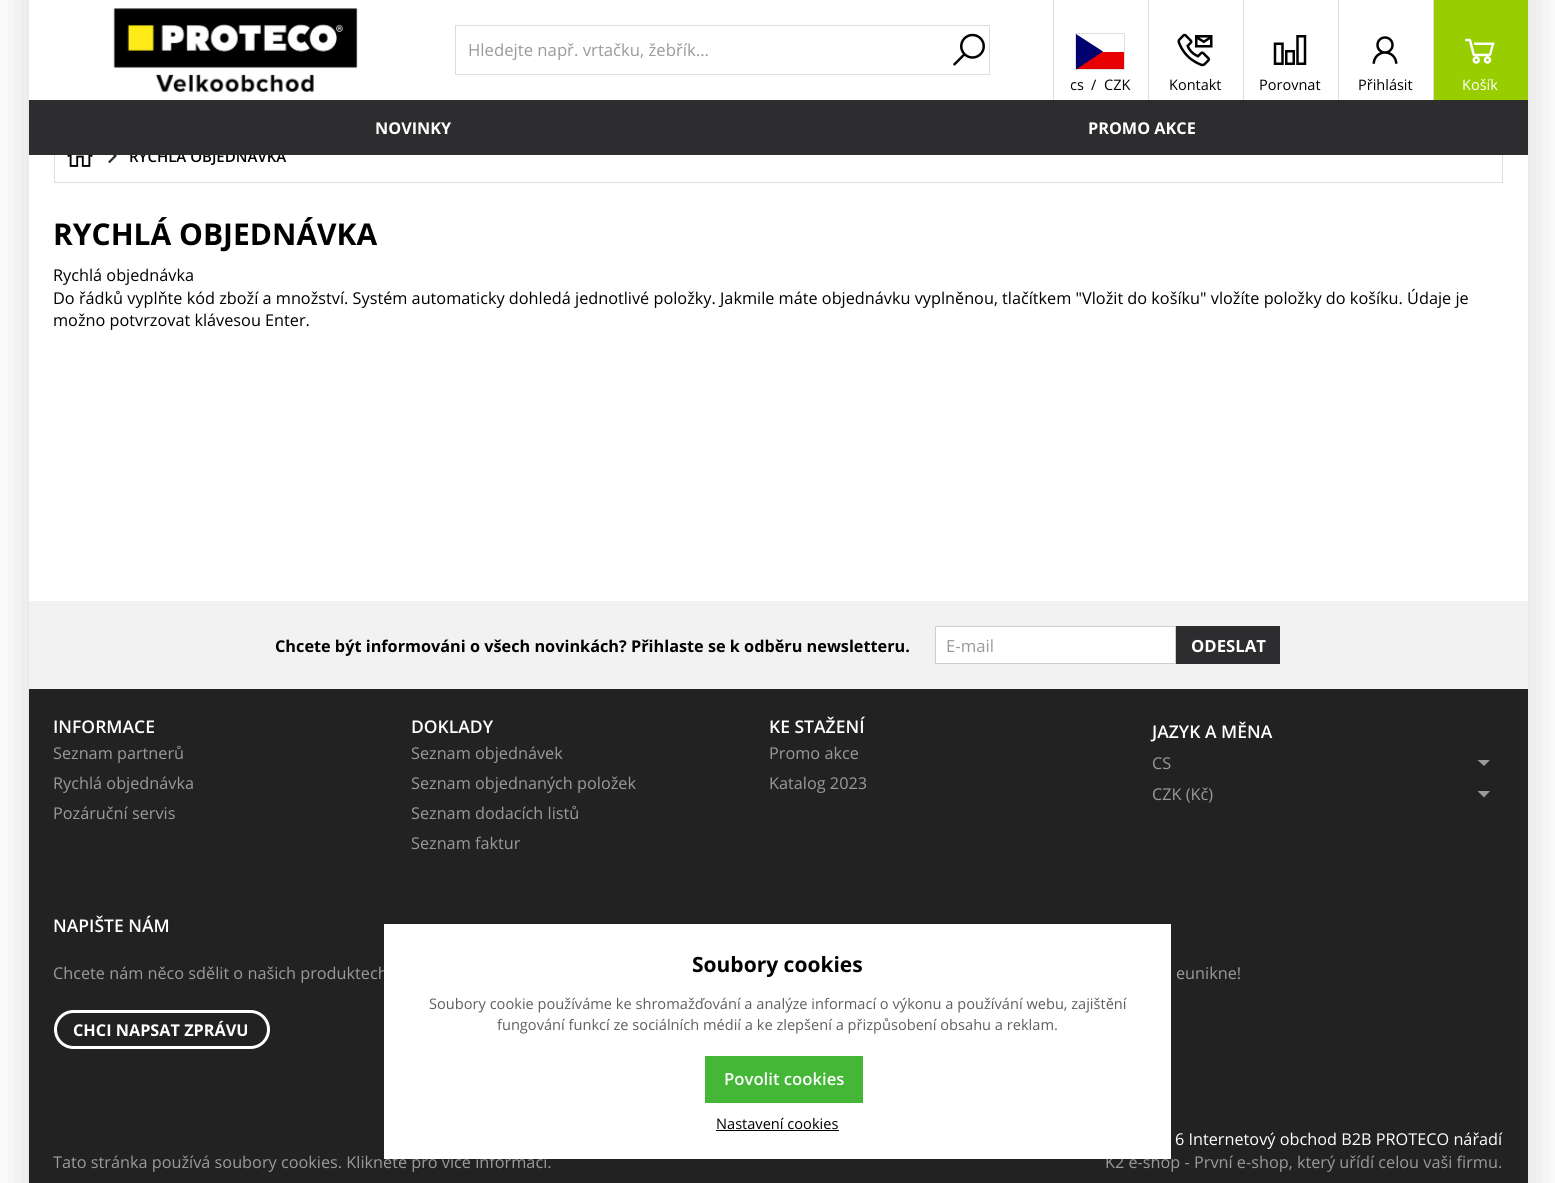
import math
import cairo

surface = cairo.ImageSurface(cairo.FORMAT_RGB24, 1555, 1183)
cr = cairo.Context(surface)
options = cairo.FontOptions()
options.set_hint_metrics(cairo.HINT_METRICS_OFF)
options.set_hint_style(cairo.HINT_STYLE_NONE)
cr.set_font_options(options)
cr.set_miter_limit(4)


def rgb(code):
    cr.set_source_rgb(*(v / 255 for v in bytes.fromhex(code[-6:])))


def rrect(x, y, w, h, r):
    cr.new_sub_path()
    for i, (u, v) in enumerate([(x + w - r, y + h - r), (x + r, y + h - r), (x + r, y + r), (x + w - r, y + r)]):
        cr.arc(u, v, r, i * math.pi / 2, (i + 1) * math.pi / 2)
    cr.close_path()


def soft_shadow(x, y, w, h, r, blur, alpha):
    cr.push_group_with_content(cairo.CONTENT_ALPHA)
    cr.set_operator(cairo.OPERATOR_SOURCE)
    for i in range(15, -16, -2):
        e = blur * i / 6
        if min(w, h) + 2 * e > 0:
            cr.set_source_rgba(0, 0, 0, alpha * math.erfc((i - 1) / 8.5) / 2)
            rrect(x - e, y - e, w + 2 * e, h + 2 * e, max(0, min(r + e + blur * .6, min(w, h) / 2 + e)))
            cr.fill()
    cr.mask(cr.pop_group())


def image(path, x, y, w, h):
    cr.save()
    cr.set_source_surface(cairo.ImageSurface.create_from_png(path), x, y)
    cr.rectangle(x, y, w, h)
    cr.fill()
    cr.restore()


rgb("#ffffff")
cr.paint()
rgb("#dddddd")
soft_shadow(24, -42, 1509, 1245, 0, 20, 1)
rgb("#ffffff")
cr.rectangle(29, 155, 1499, 446)
cr.fill()
cr.rectangle(29, 0, 1404, 100)
cr.fill()
image("img/1.png", 113, 8, 245, 85)
cr.rectangle(455.5, 25.5, 534, 49)
rgb("#dddddd")
cr.set_line_width(1)
cr.stroke()
image("img/2.png", 953, 33, 32, 33)
cr.rectangle(1053, 0, 1, 100)
cr.fill()
cr.rectangle(1075.5, 33.5, 49, 36)
rgb("#dfdfdf")
cr.stroke()
rgb("#e80000")
cr.rectangle(1076, 52, 48, 17)
cr.fill()
rgb("#00006f")
cr.new_path()
cr.move_to(1076, 69.5)
cr.line_to(1076, 34)
cr.line_to(1103, 51.5)
cr.close_path()
cr.fill()
rgb("#dddddd")
cr.rectangle(1148, 0, 1, 100)
cr.fill()
image("img/3.png", 1177, 33, 36, 34)
cr.rectangle(1243, 0, 1, 100)
cr.fill()
image("img/4.png", 1273, 35, 34, 30)
cr.rectangle(1338, 0, 1, 100)
cr.fill()
image("img/5.png", 1372, 36, 26, 28)
rgb("#98ce00")
cr.rectangle(1434, 0, 94, 100)
cr.fill()
image("img/6.png", 1465, 38, 30, 26)
cr.rectangle(54.5, 130.5, 1448, 52)
rgb("#dddddd")
cr.stroke()
image("img/7.png", 67, 155, 26, 12)
image("img/8.png", 108, 155, 9, 9)
rgb("#f2f2f2")
cr.rectangle(29, 601, 1499, 88)
cr.fill()
rgb("#ffffff")
cr.rectangle(935.5, 626.5, 240, 37)
cr.fill_preserve()
rgb("#cecece")
cr.stroke()
rgb("#2d2c2e")
cr.rectangle(1176, 626, 104, 38)
cr.fill()
rgb("#222222")
cr.rectangle(29, 689, 1499, 494)
cr.fill()
rgb("#9a9a9a")
cr.new_path()
cr.move_to(1477.5, 760)
cr.line_to(1490, 760)
cr.line_to(1484, 766)
cr.close_path()
cr.fill()
cr.new_path()
cr.move_to(1477.5, 791)
cr.line_to(1490, 791)
cr.line_to(1484, 797.5)
cr.close_path()
cr.fill()
rrect(55.5, 1011.5, 213, 36, 18)
rgb("#ffffff")
cr.set_line_width(3)
cr.stroke()
cr.select_font_face("Open Sans")
cr.set_font_size(16.7)
rgb("#9a9a9a")
cr.move_to(468, 56)
cr.show_text("Hledejte např. vrtačku, žebřík...")
cr.set_font_size(14.5)
rgb("#000000")
for x, y, s in [
    (1070, 90, "cs"),
    (1091, 90, "/"),
    (1104, 90, "CZK"),
    (1169, 90, "Kontakt"),
    (1259, 90, "Porovnat"),
    (1358, 90, "Přihlásit"),
]:
    cr.move_to(x, y)
    cr.show_text(s)
rgb("#ffffff")
cr.move_to(1462, 90)
cr.show_text("Košík")
cr.select_font_face("Open Sans SemiBold")
cr.set_font_size(15)
rgb("#000000")
cr.move_to(129, 162)
cr.show_text("RYCHLÁ OBJEDNÁVKA")
rgb("#2d2c2e")
cr.rectangle(29, 100, 1499, 55)
cr.fill()
cr.select_font_face("Open Sans", cairo.FONT_SLANT_NORMAL, cairo.FONT_WEIGHT_BOLD)
cr.set_font_size(16.25)
rgb("#ffffff")
cr.move_to(1088, 134)
cr.show_text("PROMO AKCE")
cr.move_to(375, 134)
cr.show_text("NOVINKY")
cr.set_font_size(30)
rgb("#000000")
cr.move_to(53, 245)
cr.show_text("RYCHLÁ OBJEDNÁVKA")
cr.select_font_face("Open Sans")
cr.set_font_size(16.25)
for x, y, s in [
    (53, 281, "Rychlá objednávka"),
    (53, 304, "Do řádků vyplňte kód zboží a množství. Systém automaticky dohledá jednotlivé položky. Jakmile máte objednávku vyplněnou, tlačítkem \"Vložit do košíku\" vložíte položky do košíku. Údaje je"),
    (53, 326, "možno potvrzovat klávesou Enter."),
]:
    cr.move_to(x, y)
    cr.show_text(s)
cr.select_font_face("Open Sans", cairo.FONT_SLANT_NORMAL, cairo.FONT_WEIGHT_BOLD)
cr.move_to(275, 652)
cr.show_text("Chcete být informováni o všech novinkách? Přihlaste se k odběru newsletteru.")
cr.select_font_face("Open Sans")
cr.set_font_size(16.7)
rgb("#9a9a9a")
cr.move_to(946, 652)
cr.show_text("E-mail")
cr.select_font_face("Open Sans", cairo.FONT_SLANT_NORMAL, cairo.FONT_WEIGHT_BOLD)
rgb("#ffffff")
cr.move_to(1191, 652)
cr.show_text("ODESLAT")
cr.select_font_face("Open Sans SemiBold")
cr.set_font_size(17.5)
cr.move_to(53, 733)
cr.show_text("INFORMACE")
cr.select_font_face("Open Sans")
cr.set_font_size(16.25)
rgb("#9a9a9a")
for x, y, s in [
    (53, 759, "Seznam partnerů"),
    (53, 789, "Rychlá objednávka"),
    (53, 819, "Pozáruční servis"),
]:
    cr.move_to(x, y)
    cr.show_text(s)
cr.select_font_face("Open Sans SemiBold")
cr.set_font_size(17.5)
rgb("#ffffff")
cr.move_to(411, 733)
cr.show_text("DOKLADY")
cr.select_font_face("Open Sans")
cr.set_font_size(16.25)
rgb("#9a9a9a")
for x, y, s in [
    (411, 759, "Seznam objednávek"),
    (411, 789, "Seznam objednaných položek"),
    (411, 819, "Seznam dodacích listů"),
    (411, 849, "Seznam faktur"),
]:
    cr.move_to(x, y)
    cr.show_text(s)
cr.select_font_face("Open Sans SemiBold")
cr.set_font_size(17.5)
rgb("#ffffff")
cr.move_to(769, 733)
cr.show_text("KE STAŽENÍ")
cr.select_font_face("Open Sans")
cr.set_font_size(16.25)
rgb("#9a9a9a")
cr.move_to(769, 759)
cr.show_text("Promo akce")
cr.move_to(769, 789)
cr.show_text("Katalog 2023")
cr.select_font_face("Open Sans SemiBold")
cr.set_font_size(17.5)
rgb("#ffffff")
cr.move_to(1152, 738)
cr.show_text("JAZYK A MĚNA")
cr.select_font_face("Open Sans")
cr.set_font_size(16.25)
rgb("#9a9a9a")
cr.move_to(1152, 769)
cr.show_text("CS")
cr.move_to(1152, 800)
cr.show_text("CZK (Kč)")
cr.select_font_face("Open Sans SemiBold")
cr.set_font_size(17.5)
rgb("#ffffff")
cr.move_to(53, 932)
cr.show_text("NAPIŠTE NÁM")
cr.select_font_face("Open Sans")
cr.set_font_size(16.25)
rgb("#9a9a9a")
cr.move_to(53, 979)
cr.show_text("Chcete nám něco sdělit o našich produktech")
cr.select_font_face("Open Sans", cairo.FONT_SLANT_NORMAL, cairo.FONT_WEIGHT_BOLD)
rgb("#ffffff")
cr.move_to(73, 1036)
cr.show_text("CHCI NAPSAT ZPRÁVU")
cr.select_font_face("Open Sans")
rgb("#9a9a9a")
cr.move_to(1176, 979)
cr.show_text("eunikne!")
cr.move_to(53, 1168)
cr.show_text("Tato stránka používá soubory cookies. Klikněte pro více informací.")
rgb("#ffffff")
cr.move_to(1175, 1145)
cr.show_text("6 Internetový obchod B2B PROTECO nářadí")
rgb("#9a9a9a")
cr.move_to(1105, 1168)
cr.show_text("K2 e-shop - První e-shop, který uřídí celou vaši firmu.")
rgb("#ffffff")
cr.rectangle(384, 924, 787, 235)
cr.fill()
cr.select_font_face("Open Sans", cairo.FONT_SLANT_NORMAL, cairo.FONT_WEIGHT_BOLD)
cr.set_font_size(21)
rgb("#000000")
cr.move_to(692, 972)
cr.show_text("Soubory cookies")
cr.select_font_face("Open Sans")
cr.set_font_size(14.6)
rgb("#5e5e5e")
cr.move_to(429, 1009)
cr.show_text("Soubory cookie používáme ke shromažďování a analýze informací o výkonu a používání webu, zajištění")
cr.move_to(497, 1030)
cr.show_text("fungování funkcí ze sociálních médií a ke zlepšení a přizpůsobení obsahu a reklam.")
rgb("#44b736")
cr.rectangle(705, 1056, 158, 47)
cr.fill()
cr.select_font_face("Open Sans SemiBold")
cr.set_font_size(16.7)
rgb("#ffffff")
cr.move_to(724, 1085)
cr.show_text("Povolit cookies")
cr.select_font_face("Open Sans")
cr.set_font_size(14.6)
rgb("#000000")
cr.move_to(716, 1129)
cr.show_text("Nastavení cookies")
cr.rectangle(716, 1130, 123, 1)
cr.fill()
surface.write_to_png("page.png")
